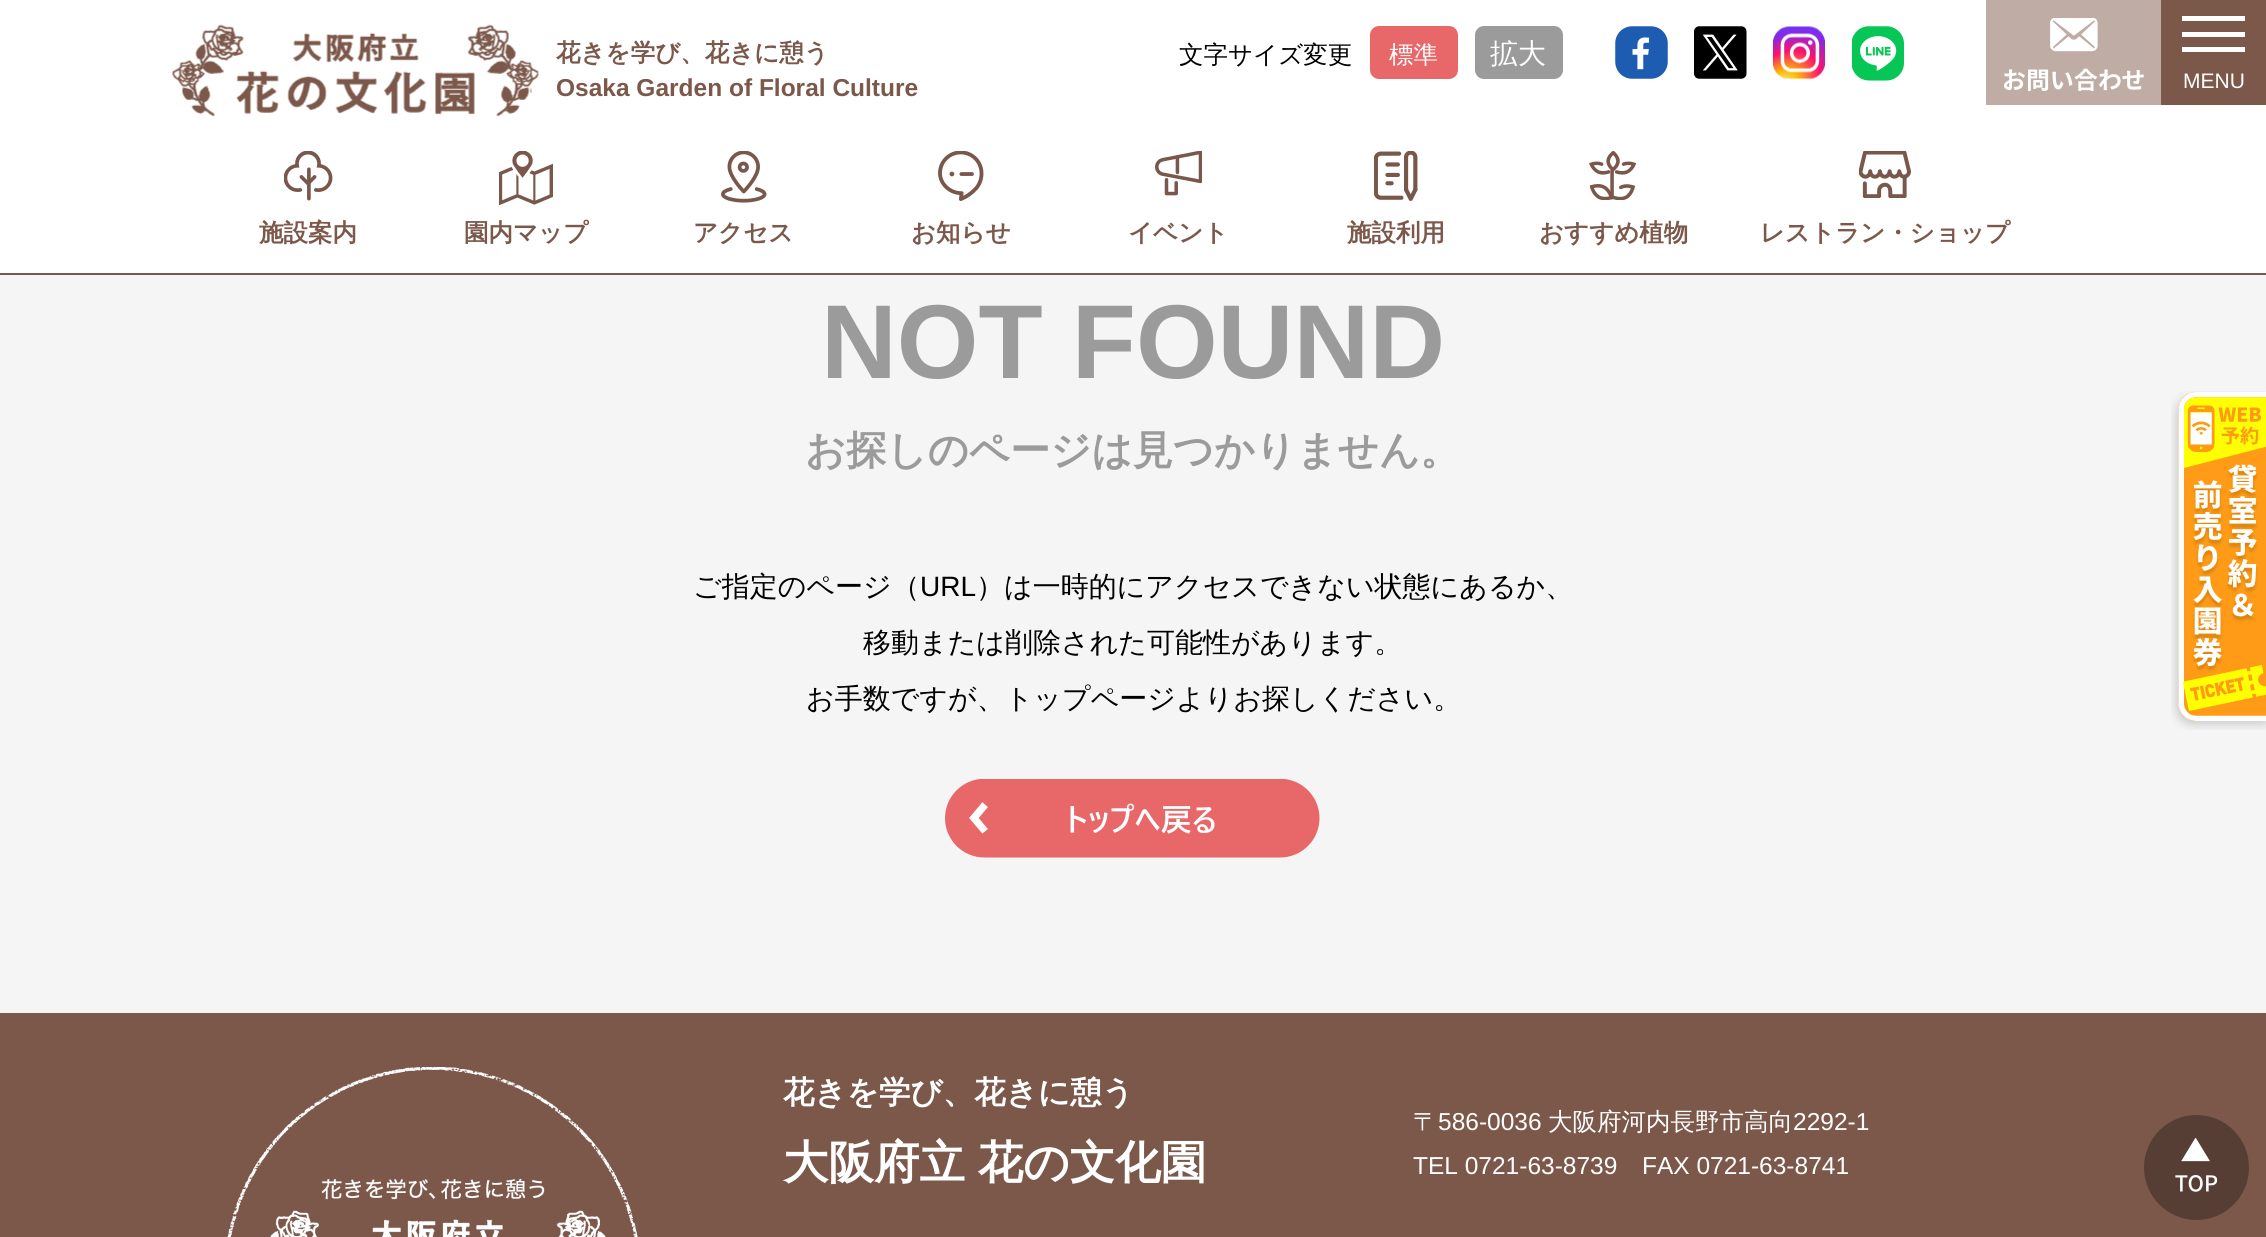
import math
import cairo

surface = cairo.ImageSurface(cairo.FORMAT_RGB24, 2266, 1237)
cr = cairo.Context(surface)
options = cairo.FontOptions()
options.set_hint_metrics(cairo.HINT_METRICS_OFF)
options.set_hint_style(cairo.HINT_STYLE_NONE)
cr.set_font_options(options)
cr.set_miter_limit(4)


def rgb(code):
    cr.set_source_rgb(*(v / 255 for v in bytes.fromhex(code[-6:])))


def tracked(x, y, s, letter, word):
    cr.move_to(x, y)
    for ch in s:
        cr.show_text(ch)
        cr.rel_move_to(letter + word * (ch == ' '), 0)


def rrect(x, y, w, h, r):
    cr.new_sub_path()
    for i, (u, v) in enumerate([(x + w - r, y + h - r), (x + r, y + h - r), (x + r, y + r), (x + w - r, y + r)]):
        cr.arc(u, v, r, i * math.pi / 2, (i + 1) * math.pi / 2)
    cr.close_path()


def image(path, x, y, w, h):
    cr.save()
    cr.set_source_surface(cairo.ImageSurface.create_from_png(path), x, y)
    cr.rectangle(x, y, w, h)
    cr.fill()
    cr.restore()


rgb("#f5f5f5")
cr.paint()
rgb("#ffffff")
cr.rectangle(0, 0, 2266, 273)
cr.fill()
rgb("#7c584b")
cr.rectangle(0, 273, 2266, 2)
cr.fill()
image("img/1.png", 172, 24, 367, 93)
rgb("#e86869")
rrect(1370, 26, 88, 53, 9)
cr.fill()
rgb("#9b9b9b")
rrect(1475, 26, 88, 53, 9)
cr.fill()
image("img/2.png", 1615, 26, 53, 53)
image("img/3.png", 1694, 26, 53, 53)
image("img/4.png", 1773, 26, 52, 54)
image("img/5.png", 1852, 26, 52, 55)
rgb("#beaca5")
cr.rectangle(1986, 0, 175, 105)
cr.fill()
image("img/6.png", 2004, 18, 140, 73)
for x, y, w, h, color in [
    (2161, 0, 105, 105, "#7c584b"),
    (2182, 16, 63, 5, "#ffffff"),
    (2182, 32, 63, 5, "#ffffff"),
    (2182, 47, 63, 5, "#ffffff"),
]:
    rgb(color)
    cr.rectangle(x, y, w, h)
    cr.fill()
image("img/7.png", 284, 151, 49, 50)
image("img/8.png", 499, 151, 54, 54)
image("img/9.png", 721, 151, 46, 52)
image("img/10.png", 938, 151, 46, 50)
image("img/11.png", 1155, 151, 47, 45)
image("img/12.png", 1374, 151, 44, 50)
image("img/13.png", 1589, 151, 47, 49)
image("img/14.png", 1859, 151, 52, 47)
image("img/15.png", 2171, 391, 95, 339)
image("img/16.png", 945, 779, 375, 79)
rgb("#7c584b")
cr.rectangle(0, 1013, 2266, 224)
cr.fill()
image("img/17.png", 227, 1067, 411, 170)
rgb("#573e35")
cr.arc(2196.5, 1167.5, 52.5, 0, 2 * math.pi)
cr.fill()
image("img/18.png", 2175, 1138, 42, 54)
cr.select_font_face("WenQuanYi Zen Hei", cairo.FONT_SLANT_NORMAL, cairo.FONT_WEIGHT_BOLD)
cr.set_font_size(24.5)
rgb("#7c584b")
cr.move_to(556, 61)
cr.show_text("花きを学び、花きに憩う")
cr.select_font_face("Liberation Sans", cairo.FONT_SLANT_NORMAL, cairo.FONT_WEIGHT_BOLD)
cr.move_to(556, 96)
cr.show_text("Osaka Garden of Floral Culture")
cr.select_font_face("WenQuanYi Zen Hei Medium")
rgb("#000000")
cr.move_to(1179, 63)
cr.show_text("文字サイズ変更")
rgb("#ffffff")
cr.move_to(1389, 63)
cr.show_text("標準")
cr.set_font_size(28)
cr.move_to(1490, 63)
cr.show_text("拡大")
cr.select_font_face("Liberation Sans")
cr.set_font_size(21)
cr.move_to(2183, 88)
cr.show_text("MENU")
cr.select_font_face("WenQuanYi Zen Hei", cairo.FONT_SLANT_NORMAL, cairo.FONT_WEIGHT_BOLD)
cr.set_font_size(24.5)
rgb("#7c584b")
for x, y, s in [
    (259, 241, "施設案内"),
    (464, 241, "園内マップ"),
    (693, 241, "アクセス"),
    (911, 241, "お知らせ"),
    (1128, 241, "イベント"),
    (1347, 241, "施設利用"),
    (1539, 241, "おすすめ植物"),
    (1760, 241, "レストラン・ショップ"),
]:
    cr.move_to(x, y)
    cr.show_text(s)
cr.select_font_face("Liberation Sans", cairo.FONT_SLANT_NORMAL, cairo.FONT_WEIGHT_BOLD)
cr.set_font_size(105)
rgb("#9b9b9b")
cr.move_to(821, 378)
cr.show_text("NOT FOUND")
cr.select_font_face("WenQuanYi Zen Hei", cairo.FONT_SLANT_NORMAL, cairo.FONT_WEIGHT_BOLD)
cr.set_font_size(40.25)
cr.move_to(805, 464)
cr.show_text("お探しのページは見つかりません。")
cr.select_font_face("WenQuanYi Zen Hei Medium")
cr.set_font_size(28)
rgb("#000000")
cr.move_to(693, 596)
cr.show_text("ご指定のページ（")
cr.select_font_face("Liberation Sans")
cr.move_to(920, 596)
cr.show_text("URL")
cr.select_font_face("WenQuanYi Zen Hei Medium")
for x, y, s in [
    (976, 596, "）は一時的にアクセスできない状態にあるか、"),
    (863, 652, "移動または削除された可能性があります。"),
    (806, 708, "お手数ですが、トップページよりお探しください。"),
]:
    cr.move_to(x, y)
    cr.show_text(s)
cr.select_font_face("WenQuanYi Zen Hei", cairo.FONT_SLANT_NORMAL, cairo.FONT_WEIGHT_BOLD)
cr.set_font_size(31.5)
rgb("#ffffff")
cr.move_to(783, 1103)
cr.show_text("花きを学び、花きに憩う")
cr.set_font_size(45.5)
tracked(783, 1178, "大阪府立 花の文化園", 0, -1)
cr.select_font_face("WenQuanYi Zen Hei Medium")
cr.set_font_size(24.5)
cr.move_to(1413, 1130)
cr.show_text("〒")
cr.select_font_face("Liberation Sans")
cr.move_to(1438, 1130)
cr.show_text("586-0036")
cr.select_font_face("WenQuanYi Zen Hei Medium")
cr.move_to(1548, 1130)
cr.show_text("大阪府河内長野市高向")
cr.select_font_face("Liberation Sans")
for x, y, s in [
    (1793, 1130, "2292-1"),
    (1413, 1174, "TEL 0721-63-8739"),
    (1642, 1174, "FAX 0721-63-8741"),
]:
    cr.move_to(x, y)
    cr.show_text(s)
surface.write_to_png("page.png")
